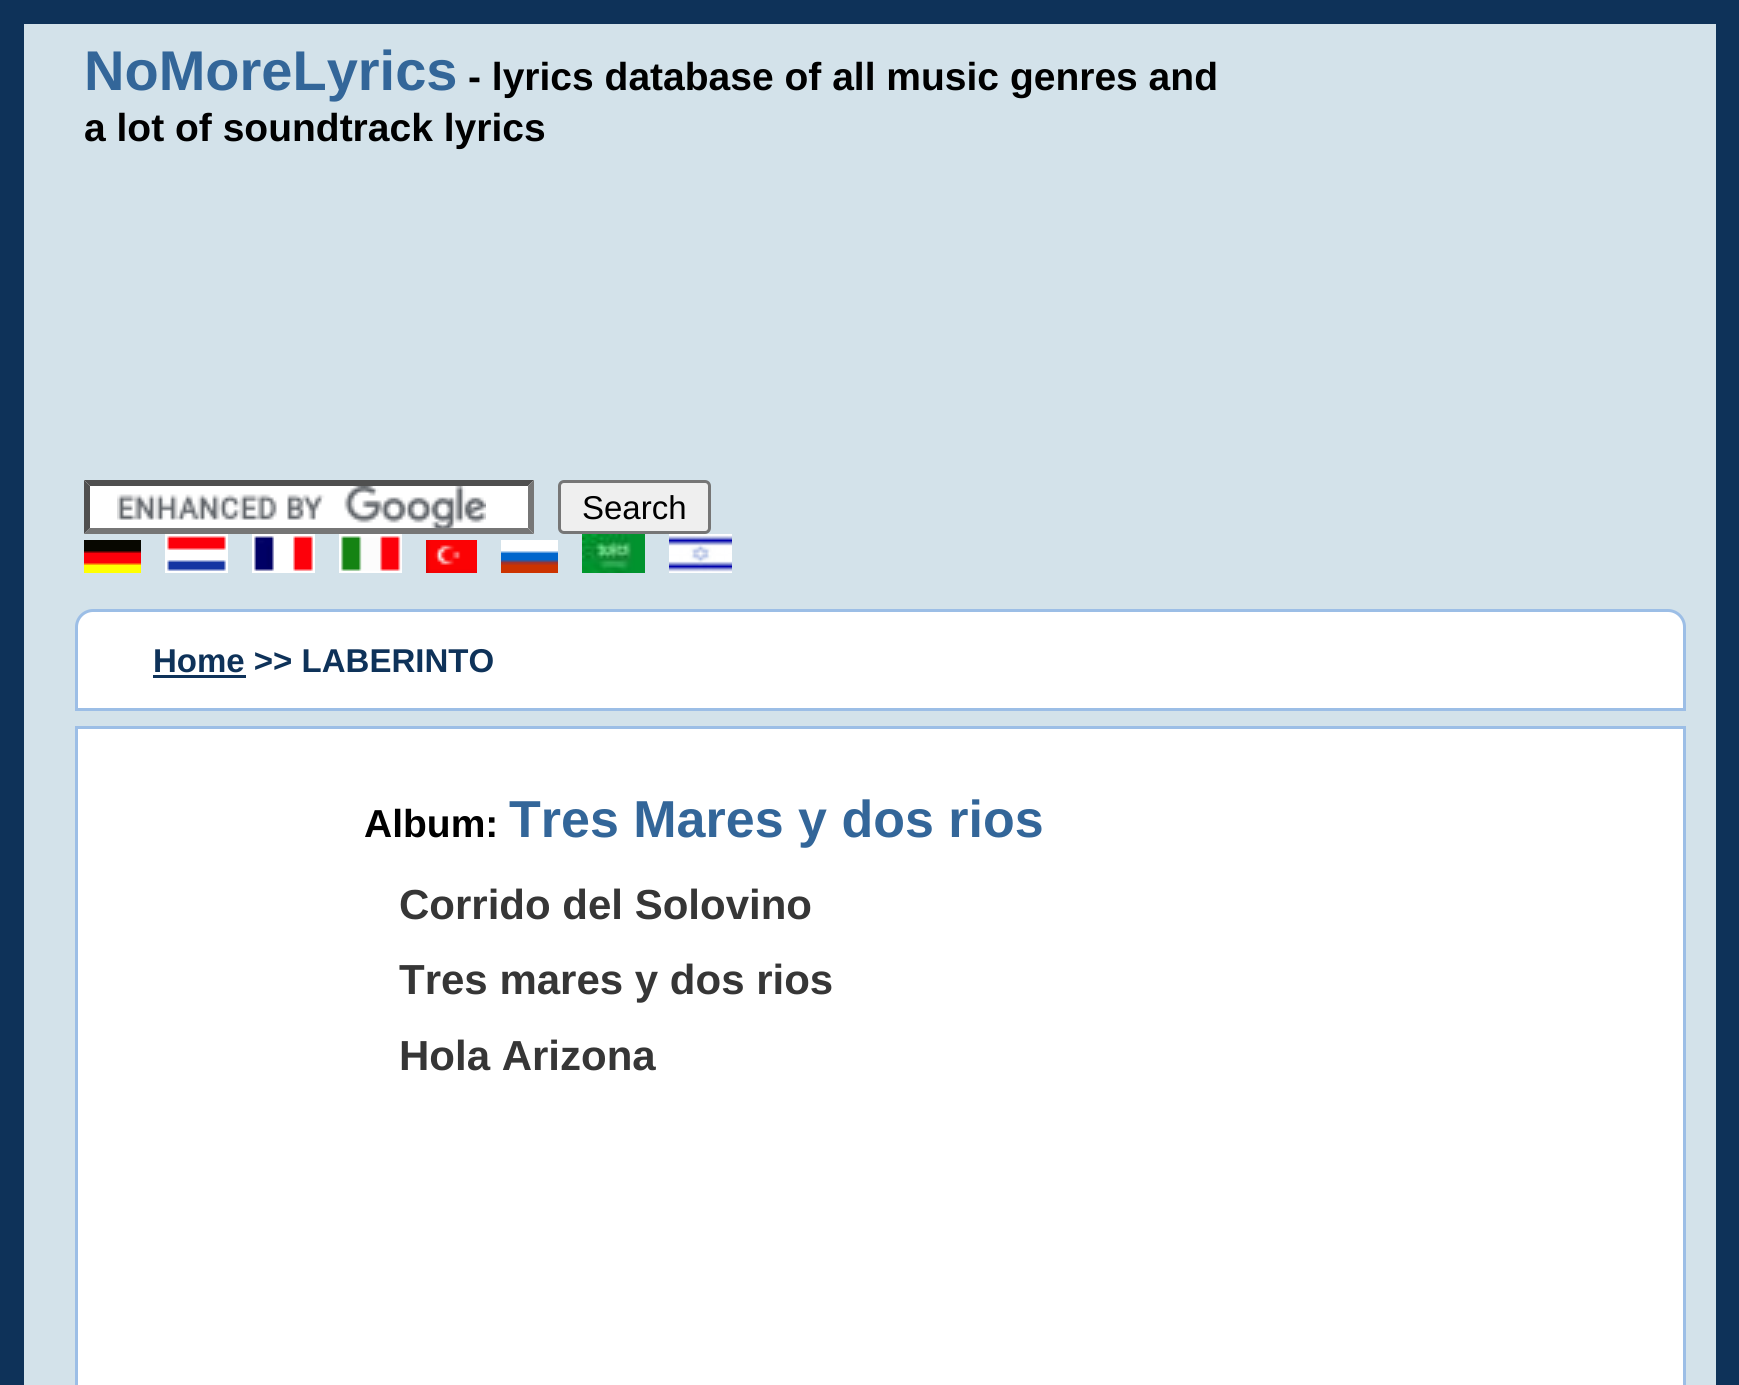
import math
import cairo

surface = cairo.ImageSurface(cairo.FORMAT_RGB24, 1739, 1385)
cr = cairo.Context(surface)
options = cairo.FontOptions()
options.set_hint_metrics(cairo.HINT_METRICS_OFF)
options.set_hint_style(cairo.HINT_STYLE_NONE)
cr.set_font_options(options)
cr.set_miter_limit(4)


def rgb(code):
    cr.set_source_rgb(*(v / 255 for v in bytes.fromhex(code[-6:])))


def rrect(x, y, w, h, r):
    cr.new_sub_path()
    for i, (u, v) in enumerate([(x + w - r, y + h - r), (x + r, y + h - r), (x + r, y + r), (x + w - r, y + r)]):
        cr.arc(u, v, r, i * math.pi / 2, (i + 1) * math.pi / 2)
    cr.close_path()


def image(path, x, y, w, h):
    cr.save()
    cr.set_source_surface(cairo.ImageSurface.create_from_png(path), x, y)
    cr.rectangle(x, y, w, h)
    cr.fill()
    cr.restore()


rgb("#0e3259")
cr.paint()
rgb("#d3e2ea")
cr.rectangle(24, 24, 1692, 1361)
cr.fill()
rgb("#ffffff")
cr.rectangle(84, 480, 450, 54)
cr.fill()
image("img/1.png", 117, 486, 369, 42)
rgb("#4f4f4f")
cr.new_path()
cr.move_to(84, 480)
cr.line_to(534, 480)
cr.line_to(528, 486)
cr.line_to(90, 486)
cr.close_path()
cr.fill()
rgb("#767676")
cr.new_path()
cr.move_to(534, 480)
cr.line_to(534, 534)
cr.line_to(528, 528)
cr.line_to(528, 486)
cr.close_path()
cr.fill()
cr.new_path()
cr.move_to(534, 534)
cr.line_to(84, 534)
cr.line_to(90, 528)
cr.line_to(528, 528)
cr.close_path()
cr.fill()
rgb("#4f4f4f")
cr.new_path()
cr.move_to(84, 534)
cr.line_to(84, 480)
cr.line_to(90, 486)
cr.line_to(90, 528)
cr.close_path()
cr.fill()
rgb("#efefef")
rrect(559.5, 481.5, 150, 51, 4.5)
cr.fill_preserve()
rgb("#767676")
cr.set_line_width(3)
cr.stroke()
image("img/2.png", 84, 540, 57, 33)
image("img/3.png", 165, 534, 63, 39)
image("img/4.png", 252, 534, 63, 39)
image("img/5.png", 339, 534, 63, 39)
image("img/6.png", 426, 540, 51, 33)
image("img/7.png", 501, 540, 57, 33)
image("img/8.png", 582, 534, 63, 39)
image("img/9.png", 669, 534, 63, 39)
rgb("#ffffff")
cr.new_path()
cr.move_to(93, 610.5)
cr.line_to(1668, 610.5)
cr.curve_to(1677, 610.5, 1684.5, 618, 1684.5, 627)
cr.line_to(1684.5, 709.5)
cr.line_to(76.5, 709.5)
cr.line_to(76.5, 627)
cr.curve_to(76.5, 618, 84, 610.5, 93, 610.5)
cr.close_path()
cr.fill_preserve()
rgb("#9cbee6")
cr.stroke()
rgb("#0e3259")
cr.rectangle(153, 675, 93, 3)
cr.fill()
rgb("#ffffff")
cr.rectangle(76.5, 727.5, 1608, 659)
cr.fill_preserve()
rgb("#9cbee6")
cr.stroke()
cr.select_font_face("Liberation Sans", cairo.FONT_SLANT_NORMAL, cairo.FONT_WEIGHT_BOLD)
cr.set_font_size(56)
rgb("#336699")
cr.move_to(84, 90)
cr.show_text("NoMoreLyrics")
cr.set_font_size(39)
rgb("#000000")
cr.move_to(468, 90)
cr.show_text("- lyrics database of all music genres and")
cr.move_to(84, 141)
cr.show_text("a lot of soundtrack lyrics")
cr.select_font_face("Liberation Sans")
cr.set_font_size(33)
cr.move_to(582, 519)
cr.show_text("Search")
cr.select_font_face("Liberation Sans", cairo.FONT_SLANT_NORMAL, cairo.FONT_WEIGHT_BOLD)
rgb("#0e3259")
cr.move_to(153, 672)
cr.show_text("Home >> LABERINTO")
cr.set_font_size(39)
rgb("#000000")
cr.move_to(364, 837)
cr.show_text("Album:")
cr.set_font_size(52)
rgb("#336699")
cr.move_to(509, 837)
cr.show_text("Tres Mares y dos rios")
cr.set_font_size(42)
rgb("#363636")
for x, y, s in [
    (399, 919, "Corrido del Solovino"),
    (399, 994, "Tres mares y dos rios"),
    (399, 1070, "Hola Arizona"),
]:
    cr.move_to(x, y)
    cr.show_text(s)
surface.write_to_png("page.png")
